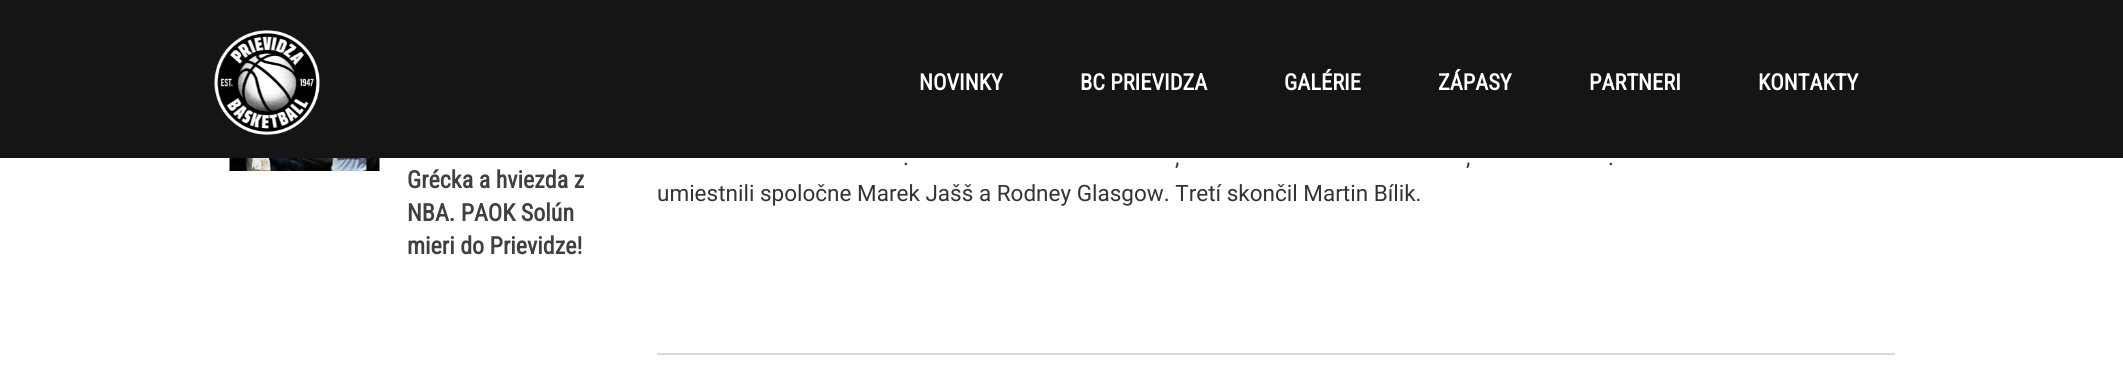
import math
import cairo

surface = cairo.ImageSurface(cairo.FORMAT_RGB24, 2123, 373)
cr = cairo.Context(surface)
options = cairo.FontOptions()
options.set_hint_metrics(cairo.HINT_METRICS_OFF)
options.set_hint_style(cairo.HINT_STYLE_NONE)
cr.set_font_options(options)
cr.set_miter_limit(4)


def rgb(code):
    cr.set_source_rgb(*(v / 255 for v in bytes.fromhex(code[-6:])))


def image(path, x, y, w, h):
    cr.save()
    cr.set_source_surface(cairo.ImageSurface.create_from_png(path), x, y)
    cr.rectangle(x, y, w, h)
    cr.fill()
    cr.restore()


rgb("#ffffff")
cr.paint()
rgb("#151515")
cr.rectangle(0, 0, 2123, 158)
cr.fill()
image("img/1.png", 214, 30, 106, 105)
image("img/2.png", 229, 158, 151, 13)
rgb("#d9d9d9")
cr.rectangle(657, 353, 1238, 2)
cr.fill()
cr.select_font_face("Roboto Condensed", cairo.FONT_SLANT_NORMAL, cairo.FONT_WEIGHT_BOLD)
cr.set_font_size(22.5)
rgb("#ffffff")
for x, y, s in [
    (919, 90, "NOVINKY"),
    (1080, 90, "BC PRIEVIDZA"),
    (1284, 90, "GALÉRIE"),
    (1438, 90, "ZÁPASY"),
    (1589, 90, "PARTNERI"),
    (1758, 90, "KONTAKTY"),
]:
    cr.move_to(x, y)
    cr.show_text(s)
cr.set_font_size(24)
rgb("#404040")
for x, y, s in [
    (407, 188, "Grécka a hviezda z"),
    (407, 221, "NBA. PAOK Solún"),
    (407, 254, "mieri do Prievidze!"),
]:
    cr.move_to(x, y)
    cr.show_text(s)
cr.select_font_face("Roboto")
cr.set_font_size(22.5)
rgb("#333333")
for x, y, s in [
    (903, 165, "."),
    (1175, 165, ","),
    (1466, 165, ","),
    (1608, 165, "."),
    (657, 201, "umiestnili spoločne Marek Jašš a Rodney Glasgow. Tretí skončil Martin Bílik."),
]:
    cr.move_to(x, y)
    cr.show_text(s)
surface.write_to_png("page.png")
